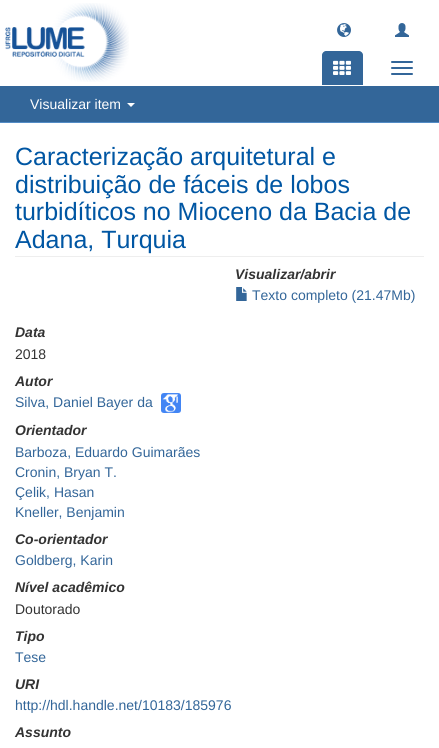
import math
import cairo

surface = cairo.ImageSurface(cairo.FORMAT_RGB24, 439, 748)
cr = cairo.Context(surface)
options = cairo.FontOptions()
options.set_hint_metrics(cairo.HINT_METRICS_OFF)
options.set_hint_style(cairo.HINT_STYLE_NONE)
cr.set_font_options(options)
cr.set_miter_limit(4)


def rgb(code):
    cr.set_source_rgb(*(v / 255 for v in bytes.fromhex(code[-6:])))


def rrect(x, y, w, h, r):
    cr.new_sub_path()
    for i, (u, v) in enumerate([(x + w - r, y + h - r), (x + r, y + h - r), (x + r, y + r), (x + w - r, y + r)]):
        cr.arc(u, v, r, i * math.pi / 2, (i + 1) * math.pi / 2)
    cr.close_path()


def image(path, x, y, w, h):
    cr.save()
    cr.set_source_surface(cairo.ImageSurface.create_from_png(path), x, y)
    cr.rectangle(x, y, w, h)
    cr.fill()
    cr.restore()


rgb("#ffffff")
cr.paint()
image("img/1.png", 5, 3, 124, 79)
image("img/2.png", 337, 23, 14, 14)
image("img/3.png", 395, 23, 14, 14)
rgb("#336699")
cr.new_path()
cr.move_to(326, 51)
cr.line_to(359, 51)
cr.curve_to(361, 51, 363, 53, 363, 55)
cr.line_to(363, 85)
cr.line_to(322, 85)
cr.line_to(322, 55)
cr.curve_to(322, 53, 324, 51, 326, 51)
cr.close_path()
cr.fill()
image("img/4.png", 333, 60, 18, 15)
rrect(391, 61, 22, 2, 1)
cr.fill()
rrect(391, 67, 22, 2, 1)
cr.fill()
rrect(391, 73, 22, 2, 1)
cr.fill()
cr.rectangle(0, 86, 439, 36)
cr.fill()
rgb("#538cc6")
cr.rectangle(0, 122, 439, 1)
cr.fill()
rgb("#ffffff")
cr.new_path()
cr.move_to(127, 103)
cr.line_to(135, 103)
cr.line_to(131, 107)
cr.close_path()
cr.fill()
rgb("#eeeeee")
cr.rectangle(15, 256, 409, 1)
cr.fill()
image("img/5.png", 236, 287, 11, 14)
image("img/6.png", 161, 393, 20, 20)
cr.select_font_face("Liberation Sans")
cr.set_font_size(14)
rgb("#ffffff")
cr.move_to(30, 109)
cr.show_text("Visualizar item")
cr.set_font_size(25)
rgb("#0056a3")
for x, y, s in [
    (15, 165, "Caracterização arquitetural e"),
    (15, 193, "distribuição de fáceis de lobos"),
    (15, 220, "turbidíticos no Mioceno da Bacia de"),
    (15, 248, "Adana, Turquia"),
]:
    cr.move_to(x, y)
    cr.show_text(s)
cr.select_font_face("Liberation Sans", cairo.FONT_SLANT_ITALIC, cairo.FONT_WEIGHT_BOLD)
cr.set_font_size(14)
rgb("#333333")
cr.move_to(235, 279)
cr.show_text("Visualizar/abrir")
cr.select_font_face("Liberation Sans")
rgb("#336699")
cr.move_to(252, 300)
cr.show_text("Texto completo (21.47Mb)")
cr.select_font_face("Liberation Sans", cairo.FONT_SLANT_ITALIC, cairo.FONT_WEIGHT_BOLD)
rgb("#333333")
cr.move_to(15, 337)
cr.show_text("Data")
cr.select_font_face("Liberation Sans")
cr.move_to(15, 359)
cr.show_text("2018")
cr.select_font_face("Liberation Sans", cairo.FONT_SLANT_ITALIC, cairo.FONT_WEIGHT_BOLD)
cr.move_to(15, 386)
cr.show_text("Autor")
cr.select_font_face("Liberation Sans")
rgb("#336699")
cr.move_to(15, 407)
cr.show_text("Silva, Daniel Bayer da")
cr.select_font_face("Liberation Sans", cairo.FONT_SLANT_ITALIC, cairo.FONT_WEIGHT_BOLD)
rgb("#333333")
cr.move_to(15, 435)
cr.show_text("Orientador")
cr.select_font_face("Liberation Sans")
rgb("#336699")
for x, y, s in [
    (15, 457, "Barboza, Eduardo Guimarães"),
    (15, 477, "Cronin, Bryan T."),
    (15, 497, "Çelik, Hasan"),
    (15, 517, "Kneller, Benjamin"),
]:
    cr.move_to(x, y)
    cr.show_text(s)
cr.select_font_face("Liberation Sans", cairo.FONT_SLANT_ITALIC, cairo.FONT_WEIGHT_BOLD)
rgb("#333333")
cr.move_to(15, 544)
cr.show_text("Co-orientador")
cr.select_font_face("Liberation Sans")
rgb("#336699")
cr.move_to(15, 565)
cr.show_text("Goldberg, Karin")
cr.select_font_face("Liberation Sans", cairo.FONT_SLANT_ITALIC, cairo.FONT_WEIGHT_BOLD)
rgb("#333333")
cr.move_to(15, 592)
cr.show_text("Nível acadêmico")
cr.select_font_face("Liberation Sans")
cr.move_to(15, 614)
cr.show_text("Doutorado")
cr.select_font_face("Liberation Sans", cairo.FONT_SLANT_ITALIC, cairo.FONT_WEIGHT_BOLD)
cr.move_to(15, 641)
cr.show_text("Tipo")
cr.select_font_face("Liberation Sans")
rgb("#336699")
cr.move_to(15, 662)
cr.show_text("Tese")
cr.select_font_face("Liberation Sans", cairo.FONT_SLANT_ITALIC, cairo.FONT_WEIGHT_BOLD)
rgb("#333333")
cr.move_to(15, 689)
cr.show_text("URI")
cr.select_font_face("Liberation Sans")
rgb("#336699")
cr.move_to(15, 710)
cr.show_text("http://hdl.handle.net/10183/185976")
cr.select_font_face("Liberation Sans", cairo.FONT_SLANT_ITALIC, cairo.FONT_WEIGHT_BOLD)
rgb("#333333")
cr.move_to(15, 737)
cr.show_text("Assunto")
surface.write_to_png("page.png")
